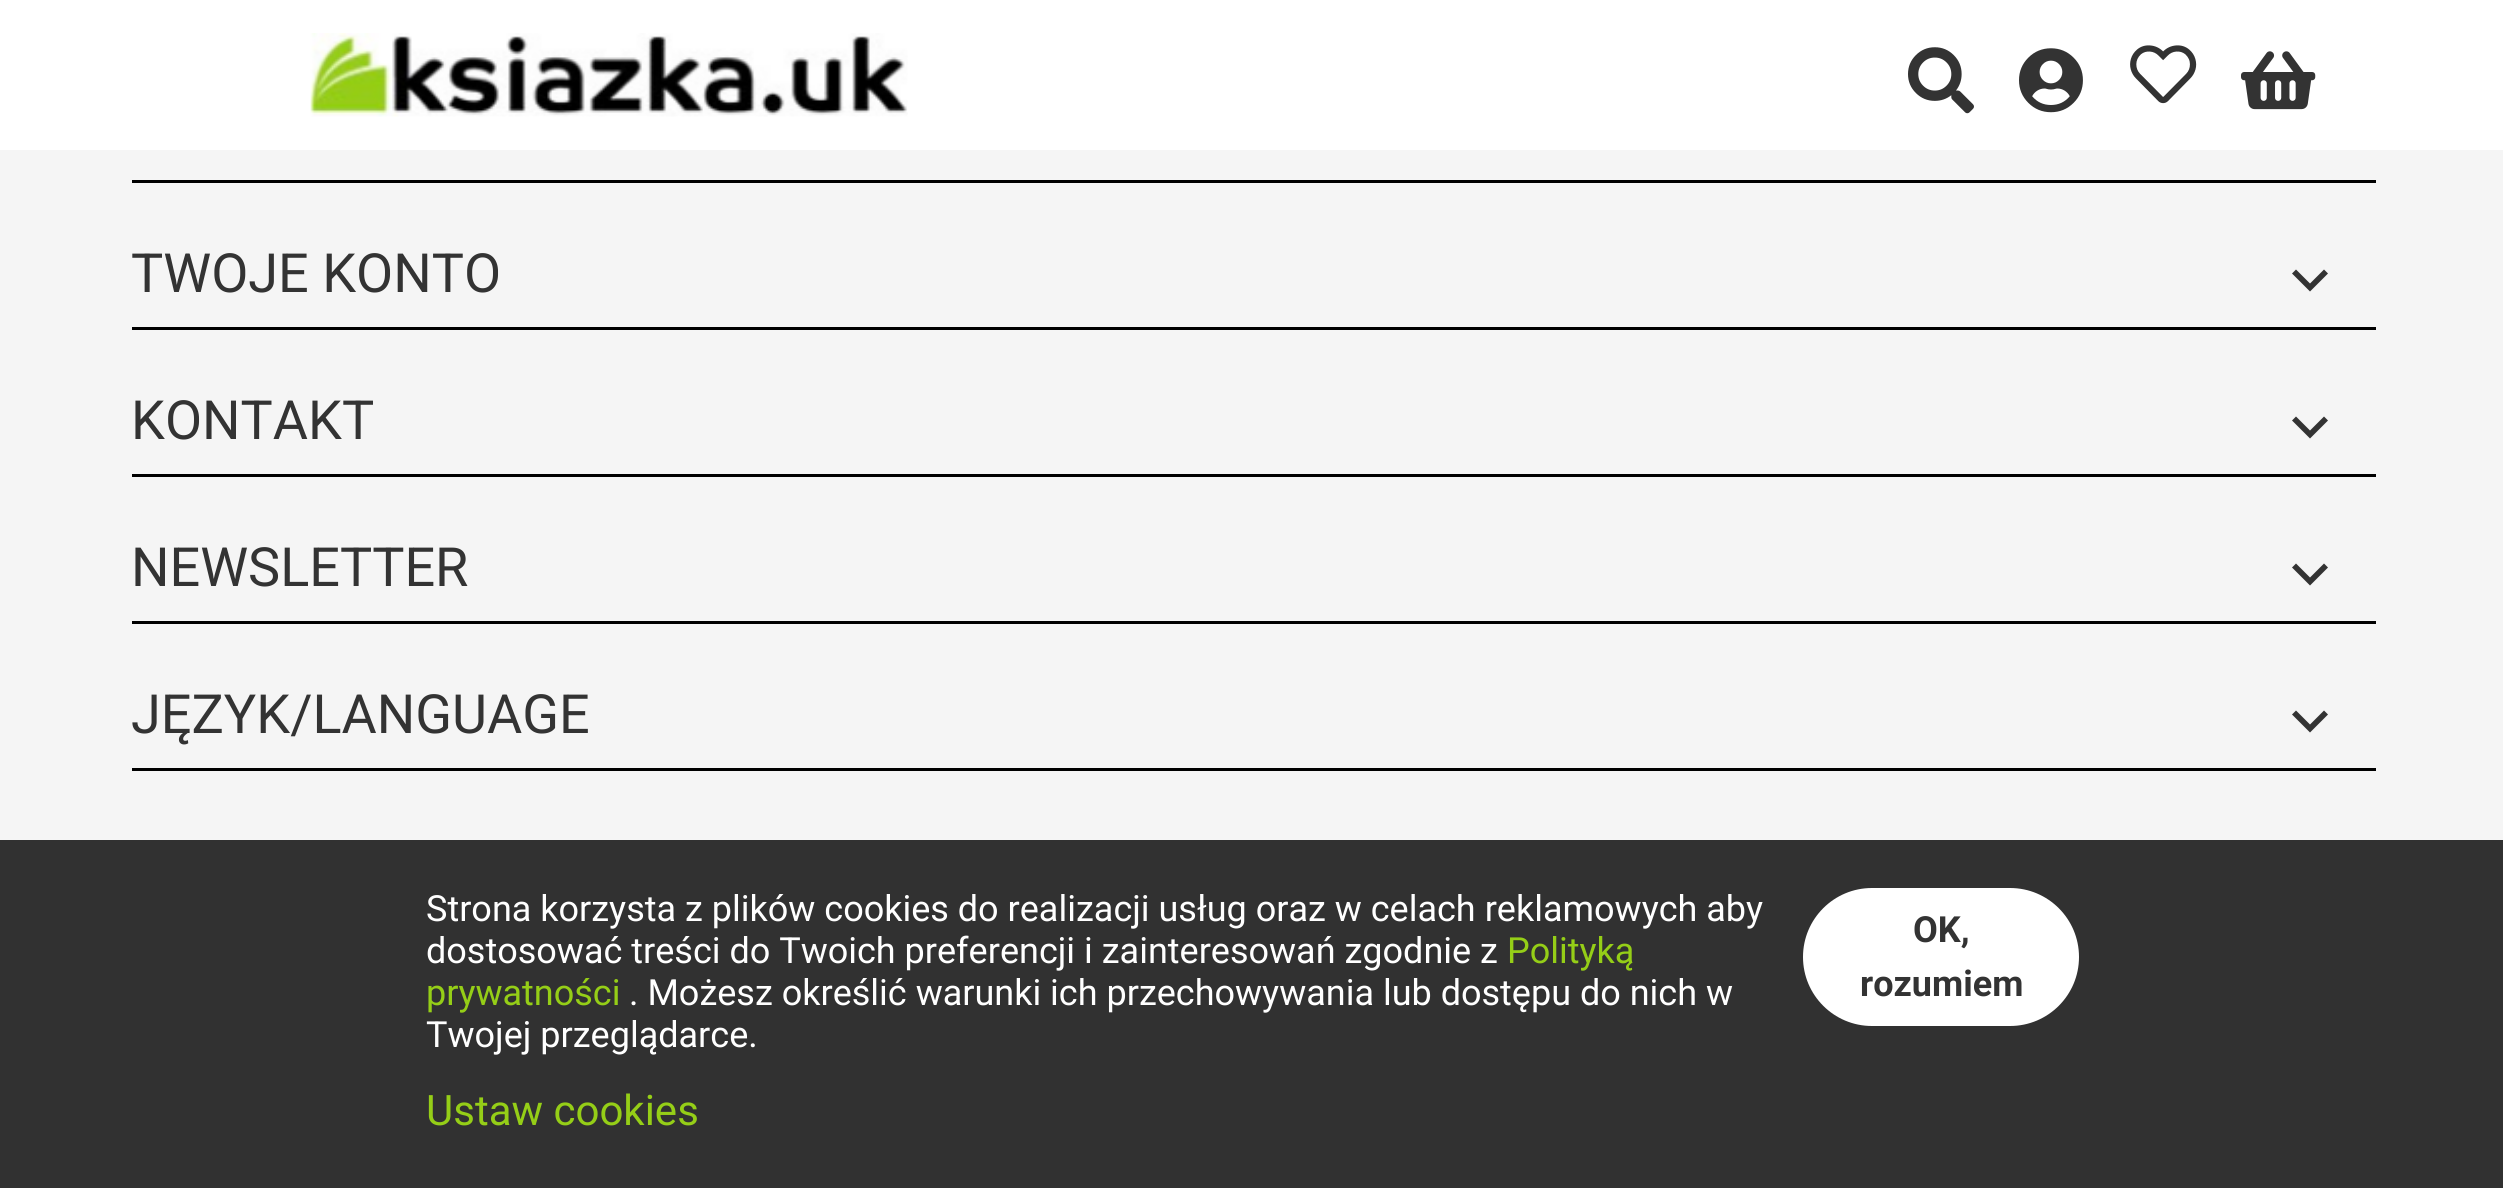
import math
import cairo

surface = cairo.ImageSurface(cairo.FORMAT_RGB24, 2503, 1188)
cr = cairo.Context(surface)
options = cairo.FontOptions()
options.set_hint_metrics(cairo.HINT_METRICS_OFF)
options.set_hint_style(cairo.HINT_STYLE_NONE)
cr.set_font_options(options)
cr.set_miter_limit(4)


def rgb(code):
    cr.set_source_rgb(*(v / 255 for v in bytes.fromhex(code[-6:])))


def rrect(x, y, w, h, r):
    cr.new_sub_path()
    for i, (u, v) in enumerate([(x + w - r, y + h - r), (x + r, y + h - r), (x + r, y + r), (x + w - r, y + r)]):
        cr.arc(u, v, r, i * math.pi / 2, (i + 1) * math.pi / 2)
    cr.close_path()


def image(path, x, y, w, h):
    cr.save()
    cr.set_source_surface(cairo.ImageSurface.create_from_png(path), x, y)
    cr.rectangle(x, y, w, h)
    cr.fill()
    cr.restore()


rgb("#f5f5f5")
cr.paint()
rgb("#ffffff")
cr.rectangle(0, 0, 2503, 150)
cr.fill()
image("img/1.png", 310, 33, 598, 84)
image("img/2.png", 1908, 47, 66, 67)
image("img/3.png", 2019, 48, 64, 65)
image("img/4.png", 2130, 45, 67, 59)
image("img/5.png", 2241, 51, 75, 59)
rgb("#000000")
cr.rectangle(132, 180, 2244, 3)
cr.fill()
cr.rectangle(132, 327, 2244, 3)
cr.fill()
rgb("#333333")
cr.new_path()
cr.move_to(2296, 269.5)
cr.line_to(2310, 283.5)
cr.line_to(2324, 269.5)
cr.line_to(2328, 273.5)
cr.line_to(2310, 291.5)
cr.line_to(2292, 273.5)
cr.close_path()
cr.fill()
rgb("#000000")
cr.rectangle(132, 474, 2244, 3)
cr.fill()
rgb("#333333")
cr.new_path()
cr.move_to(2296, 416.5)
cr.line_to(2310, 430.5)
cr.line_to(2324, 416.5)
cr.line_to(2328, 420.5)
cr.line_to(2310, 438.5)
cr.line_to(2292, 420.5)
cr.close_path()
cr.fill()
rgb("#000000")
cr.rectangle(132, 621, 2244, 3)
cr.fill()
rgb("#333333")
cr.new_path()
cr.move_to(2296, 563.5)
cr.line_to(2310, 577.5)
cr.line_to(2324, 563.5)
cr.line_to(2328, 567.5)
cr.line_to(2310, 585.5)
cr.line_to(2292, 567.5)
cr.close_path()
cr.fill()
rgb("#313131")
cr.rectangle(0, 840, 2503, 348)
cr.fill()
rgb("#ffffff")
rrect(1803, 888, 276, 138, 69)
cr.fill()
rgb("#000000")
cr.rectangle(132, 768, 2244, 3)
cr.fill()
rgb("#333333")
cr.new_path()
cr.move_to(2296, 710.5)
cr.line_to(2310, 724.5)
cr.line_to(2324, 710.5)
cr.line_to(2328, 714.5)
cr.line_to(2310, 732.5)
cr.line_to(2292, 714.5)
cr.close_path()
cr.fill()
cr.select_font_face("Roboto")
cr.set_font_size(54)
for x, y, s in [
    (131, 292, "TWOJE KONTO"),
    (131, 439, "KONTAKT"),
    (131, 586, "NEWSLETTER"),
]:
    cr.move_to(x, y)
    cr.show_text(s)
cr.set_font_size(36)
rgb("#ffffff")
cr.move_to(426, 921)
cr.show_text("Strona korzysta z plików cookies do realizacji usług oraz w celach reklamowych aby")
cr.move_to(426, 963)
cr.show_text("dostosować treści do Twoich preferencji i zainteresowań zgodnie z")
rgb("#95ce17")
cr.move_to(1507, 963)
cr.show_text("Polityką")
cr.move_to(426, 1005)
cr.show_text("prywatności")
rgb("#ffffff")
cr.move_to(629, 1005)
cr.show_text(". Możesz określić warunki ich przechowywania lub dostępu do nich w")
cr.move_to(426, 1047)
cr.show_text("Twojej przeglądarce.")
cr.set_font_size(42)
rgb("#95ce17")
cr.move_to(426, 1125)
cr.show_text("Ustaw cookies")
cr.select_font_face("Roboto", cairo.FONT_SLANT_NORMAL, cairo.FONT_WEIGHT_BOLD)
cr.set_font_size(36)
rgb("#333333")
cr.move_to(1913, 942)
cr.show_text("OK,")
cr.move_to(1860, 996)
cr.show_text("rozumiem")
cr.select_font_face("Roboto")
cr.set_font_size(54)
cr.move_to(131, 733)
cr.show_text("JĘZYK/LANGUAGE")
surface.write_to_png("page.png")
